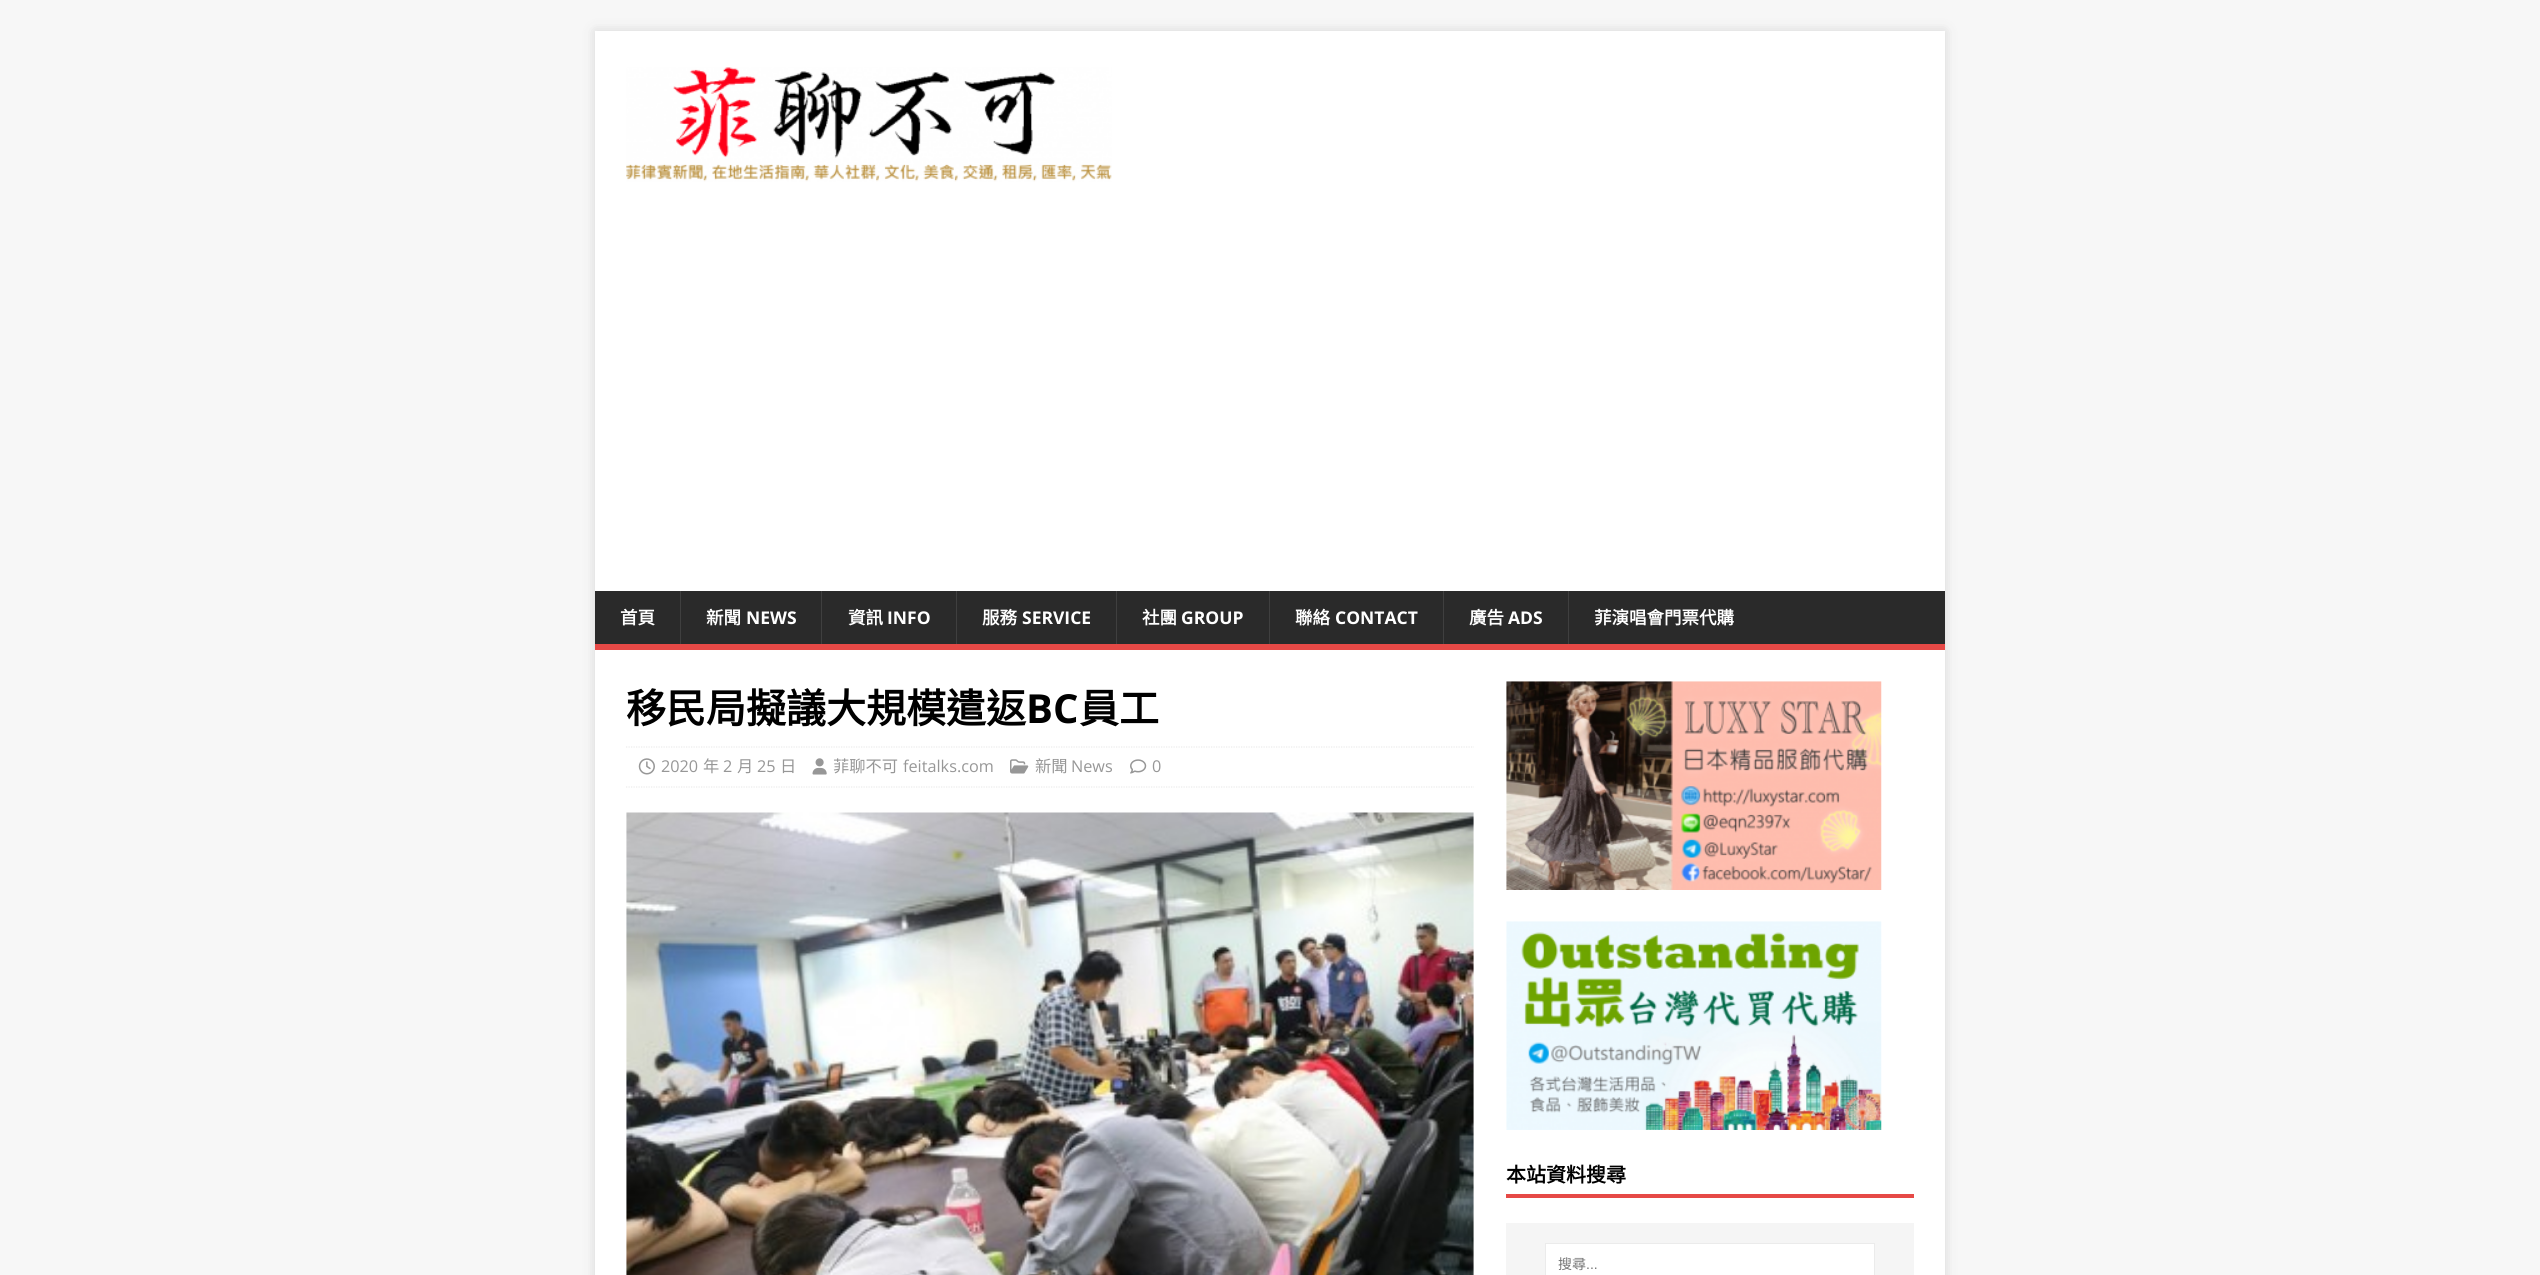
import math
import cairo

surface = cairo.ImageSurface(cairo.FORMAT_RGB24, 2540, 1275)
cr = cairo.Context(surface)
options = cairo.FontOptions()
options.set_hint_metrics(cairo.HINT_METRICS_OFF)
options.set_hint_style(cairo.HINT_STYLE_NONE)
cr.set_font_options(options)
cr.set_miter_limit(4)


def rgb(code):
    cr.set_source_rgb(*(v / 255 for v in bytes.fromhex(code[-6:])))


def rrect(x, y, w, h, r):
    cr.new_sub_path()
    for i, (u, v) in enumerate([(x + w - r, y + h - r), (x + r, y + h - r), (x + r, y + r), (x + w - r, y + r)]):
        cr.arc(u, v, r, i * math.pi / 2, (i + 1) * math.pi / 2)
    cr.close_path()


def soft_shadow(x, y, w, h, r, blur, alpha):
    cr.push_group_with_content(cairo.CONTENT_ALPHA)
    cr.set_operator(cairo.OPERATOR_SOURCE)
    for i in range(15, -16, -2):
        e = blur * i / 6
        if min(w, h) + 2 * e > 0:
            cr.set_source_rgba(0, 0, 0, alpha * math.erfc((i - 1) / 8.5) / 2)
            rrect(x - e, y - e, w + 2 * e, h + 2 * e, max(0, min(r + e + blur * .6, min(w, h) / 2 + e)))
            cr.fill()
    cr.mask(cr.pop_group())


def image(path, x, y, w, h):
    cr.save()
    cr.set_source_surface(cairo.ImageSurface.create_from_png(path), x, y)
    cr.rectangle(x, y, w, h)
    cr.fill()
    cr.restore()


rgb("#f7f7f7")
cr.paint()
rgb("#323232")
soft_shadow(595, 31, 1350, 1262, 0, 6, 0.17)
rgb("#ffffff")
cr.rectangle(595, 31, 1350, 560)
cr.fill()
image("img/1.png", 626, 67, 486, 115)
for x, y, w, h, color in [
    (595, 591, 1350, 53, "#2a2a2a"),
    (595, 644, 1350, 6, "#e64946"),
    (680, 591, 1, 53, "#3f3f3f"),
    (821, 591, 1, 53, "#3f3f3f"),
    (956, 591, 1, 53, "#3f3f3f"),
    (1116, 591, 1, 53, "#3f3f3f"),
    (1269, 591, 1, 53, "#3f3f3f"),
    (1443, 591, 1, 53, "#3f3f3f"),
    (1568, 591, 1, 53, "#3f3f3f"),
    (595, 650, 1350, 625, "#ffffff"),
]:
    rgb(color)
    cr.rectangle(x, y, w, h)
    cr.fill()
cr.new_path()
cr.move_to(626, 747)
cr.line_to(1474, 747)
rgb("#ebebeb")
cr.set_line_width(1.2)
cr.set_dash([1.25, 1.25])
cr.stroke()
cr.new_path()
cr.move_to(626, 787)
cr.line_to(1474, 787)
cr.stroke()
image("img/2.png", 638, 758, 17, 17)
image("img/3.png", 812, 758, 15, 17)
image("img/4.png", 1010, 759, 19, 15)
image("img/5.png", 1130, 759, 17, 15)
image("img/6.png", 626, 812, 848, 463)
image("img/7.png", 1506, 681, 376, 209)
image("img/8.png", 1506, 921, 376, 209)
rgb("#e64946")
cr.rectangle(1506, 1194, 408, 4)
cr.fill()
rgb("#f5f5f5")
cr.rectangle(1506, 1223, 408, 52)
cr.fill()
rgb("#ffffff")
cr.rectangle(1545.5, 1243.5, 329, 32)
cr.fill_preserve()
rgb("#ebebeb")
cr.set_line_width(1)
cr.set_dash([])
cr.stroke()
cr.select_font_face("Noto Sans CJK TC", cairo.FONT_SLANT_NORMAL, cairo.FONT_WEIGHT_BOLD)
cr.set_font_size(17.5)
rgb("#ffffff")
cr.move_to(620, 624)
cr.show_text("首頁")
cr.move_to(706, 624)
cr.show_text("新聞")
cr.select_font_face("Open Sans", cairo.FONT_SLANT_NORMAL, cairo.FONT_WEIGHT_BOLD)
cr.move_to(746, 624)
cr.show_text("NEWS")
cr.select_font_face("Noto Sans CJK TC", cairo.FONT_SLANT_NORMAL, cairo.FONT_WEIGHT_BOLD)
cr.move_to(848, 624)
cr.show_text("資訊")
cr.select_font_face("Open Sans", cairo.FONT_SLANT_NORMAL, cairo.FONT_WEIGHT_BOLD)
cr.move_to(887, 624)
cr.show_text("INFO")
cr.select_font_face("Noto Sans CJK TC", cairo.FONT_SLANT_NORMAL, cairo.FONT_WEIGHT_BOLD)
cr.move_to(982, 624)
cr.show_text("服務")
cr.select_font_face("Open Sans", cairo.FONT_SLANT_NORMAL, cairo.FONT_WEIGHT_BOLD)
cr.move_to(1022, 624)
cr.show_text("SERVICE")
cr.select_font_face("Noto Sans CJK TC", cairo.FONT_SLANT_NORMAL, cairo.FONT_WEIGHT_BOLD)
cr.move_to(1142, 624)
cr.show_text("社團")
cr.select_font_face("Open Sans", cairo.FONT_SLANT_NORMAL, cairo.FONT_WEIGHT_BOLD)
cr.move_to(1181, 624)
cr.show_text("GROUP")
cr.select_font_face("Noto Sans CJK TC", cairo.FONT_SLANT_NORMAL, cairo.FONT_WEIGHT_BOLD)
cr.move_to(1295, 624)
cr.show_text("聯絡")
cr.select_font_face("Open Sans", cairo.FONT_SLANT_NORMAL, cairo.FONT_WEIGHT_BOLD)
cr.move_to(1335, 624)
cr.show_text("CONTACT")
cr.select_font_face("Noto Sans CJK TC", cairo.FONT_SLANT_NORMAL, cairo.FONT_WEIGHT_BOLD)
cr.move_to(1469, 624)
cr.show_text("廣告")
cr.select_font_face("Open Sans", cairo.FONT_SLANT_NORMAL, cairo.FONT_WEIGHT_BOLD)
cr.move_to(1508, 624)
cr.show_text("ADS")
cr.select_font_face("Noto Sans CJK TC", cairo.FONT_SLANT_NORMAL, cairo.FONT_WEIGHT_BOLD)
cr.move_to(1594, 624)
cr.show_text("菲演唱會門票代購")
cr.set_font_size(40)
rgb("#000000")
cr.move_to(626, 723)
cr.show_text("移民局擬議大規模遣返")
cr.select_font_face("Open Sans", cairo.FONT_SLANT_NORMAL, cairo.FONT_WEIGHT_BOLD)
cr.move_to(1026, 723)
cr.show_text("BC")
cr.select_font_face("Noto Sans CJK TC", cairo.FONT_SLANT_NORMAL, cairo.FONT_WEIGHT_BOLD)
cr.move_to(1079, 723)
cr.show_text("員工")
cr.select_font_face("Open Sans")
cr.set_font_size(16.25)
rgb("#979797")
cr.move_to(661, 772)
cr.show_text("2020")
cr.select_font_face("Noto Sans CJK TC")
cr.move_to(703, 772)
cr.show_text("年")
cr.select_font_face("Open Sans")
cr.move_to(723, 772)
cr.show_text("2")
cr.select_font_face("Noto Sans CJK TC")
cr.move_to(737, 772)
cr.show_text("月")
cr.select_font_face("Open Sans")
cr.move_to(757, 772)
cr.show_text("25")
cr.select_font_face("Noto Sans CJK TC")
cr.move_to(780, 772)
cr.show_text("日")
cr.move_to(833, 772)
cr.show_text("菲聊不可")
cr.select_font_face("Open Sans")
cr.move_to(903, 772)
cr.show_text("feitalks.com")
cr.select_font_face("Noto Sans CJK TC")
cr.move_to(1035, 772)
cr.show_text("新聞")
cr.select_font_face("Open Sans")
cr.move_to(1071, 772)
cr.show_text("News")
cr.move_to(1152, 772)
cr.show_text("0")
cr.select_font_face("Noto Sans CJK TC", cairo.FONT_SLANT_NORMAL, cairo.FONT_WEIGHT_BOLD)
cr.set_font_size(20)
rgb("#000000")
cr.move_to(1506, 1182)
cr.show_text("本站資料搜尋")
cr.select_font_face("Noto Sans CJK TC")
cr.set_font_size(14)
rgb("#757575")
cr.move_to(1558, 1269)
cr.show_text("搜尋")
cr.select_font_face("Liberation Sans")
cr.move_to(1586, 1269)
cr.show_text("...")
surface.write_to_png("page.png")
